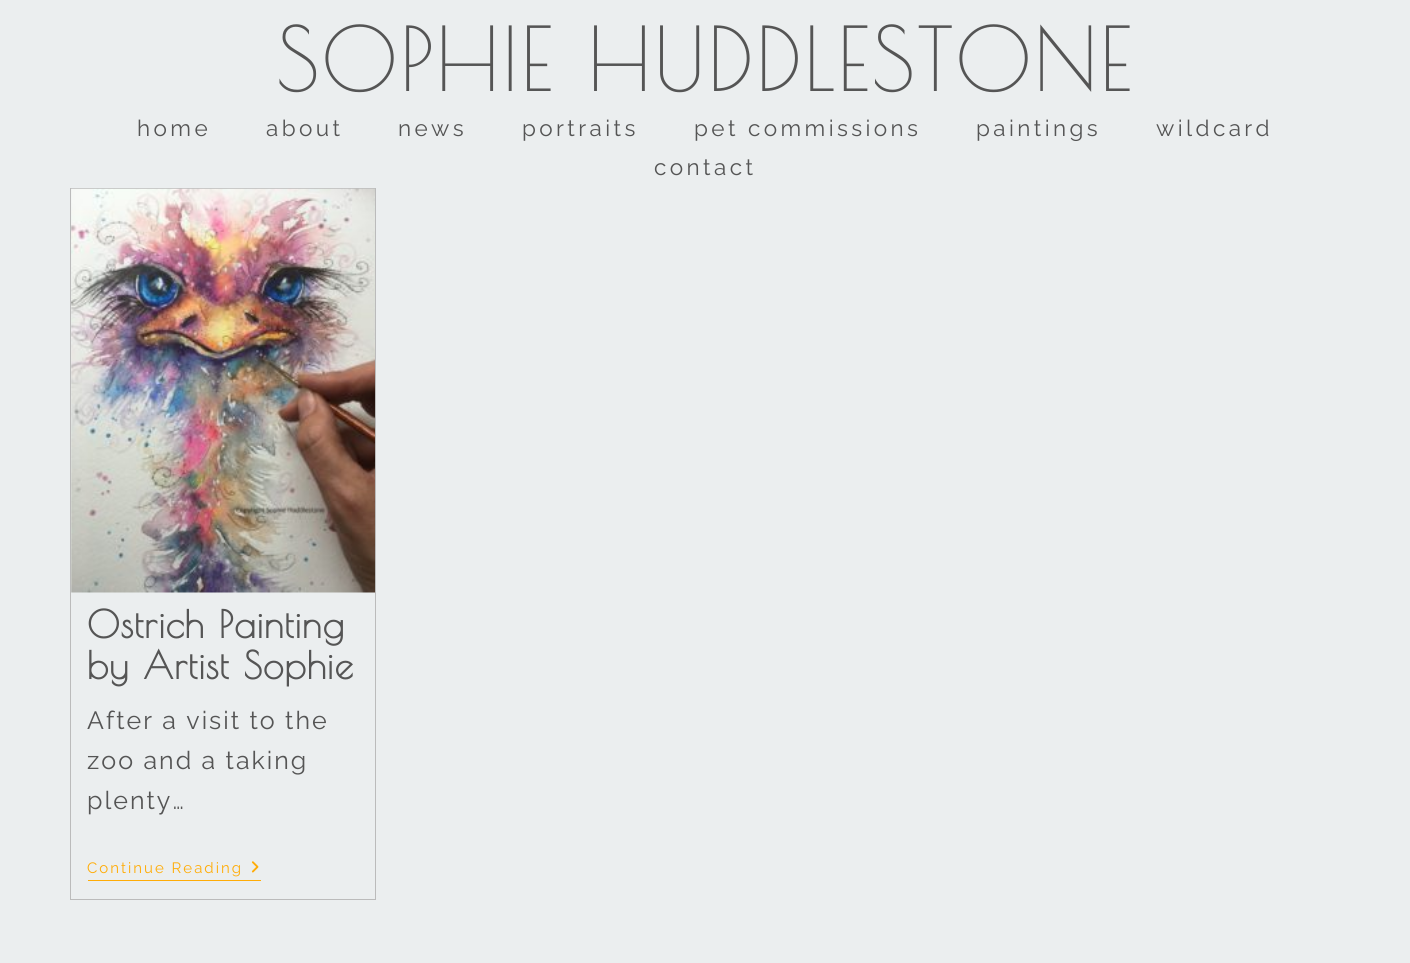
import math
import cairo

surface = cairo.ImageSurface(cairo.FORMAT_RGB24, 1410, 963)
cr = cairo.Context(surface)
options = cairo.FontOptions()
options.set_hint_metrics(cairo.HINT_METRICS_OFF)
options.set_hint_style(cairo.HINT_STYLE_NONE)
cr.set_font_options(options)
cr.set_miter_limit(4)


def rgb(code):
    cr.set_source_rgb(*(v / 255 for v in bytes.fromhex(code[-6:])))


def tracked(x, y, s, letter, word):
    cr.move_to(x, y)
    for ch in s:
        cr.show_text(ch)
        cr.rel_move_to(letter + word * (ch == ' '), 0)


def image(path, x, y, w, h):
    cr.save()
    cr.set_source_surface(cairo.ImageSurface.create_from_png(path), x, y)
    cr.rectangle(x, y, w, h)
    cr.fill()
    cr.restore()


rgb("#ebeeef")
cr.paint()
cr.rectangle(70.5, 188.5, 305, 711)
rgb("#bbbbbb")
cr.set_line_width(1)
cr.stroke()
image("img/1.png", 71, 188, 304, 405)
rgb("#ffac07")
cr.rectangle(88, 880, 173, 1)
cr.fill()
image("img/2.png", 251, 861, 8, 12)
cr.select_font_face("Poiret One")
cr.set_font_size(87.5)
rgb("#555555")
tracked(276, 91, "SOPHIE HUDDLESTONE", 2, 0)
cr.select_font_face("Raleway")
cr.set_font_size(22.5)
for x, y, s in [
    (137, 136, "home"),
    (266, 136, "about"),
    (398, 136, "news"),
    (522, 136, "portraits"),
    (694, 136, "pet commissions"),
    (976, 136, "paintings"),
    (1156, 136, "wildcard"),
    (654, 175, "contact"),
]:
    tracked(x, y, s, 3.4, 0)
cr.select_font_face("Poiret One", cairo.FONT_SLANT_NORMAL, cairo.FONT_WEIGHT_BOLD)
cr.set_font_size(37.5)
tracked(87, 638, "Ostrich Painting", 0.9, 0)
tracked(87, 679, "by Artist Sophie", 0.9, 0)
cr.select_font_face("Raleway")
cr.set_font_size(25)
for x, y, s in [
    (87, 729, "After a visit to the"),
    (87, 769, "zoo and a taking"),
    (87, 809, "plenty…"),
]:
    tracked(x, y, s, 2, 0)
cr.set_font_size(15)
rgb("#ffac07")
tracked(87, 873, "Continue Reading", 2, 0)
surface.write_to_png("page.png")
